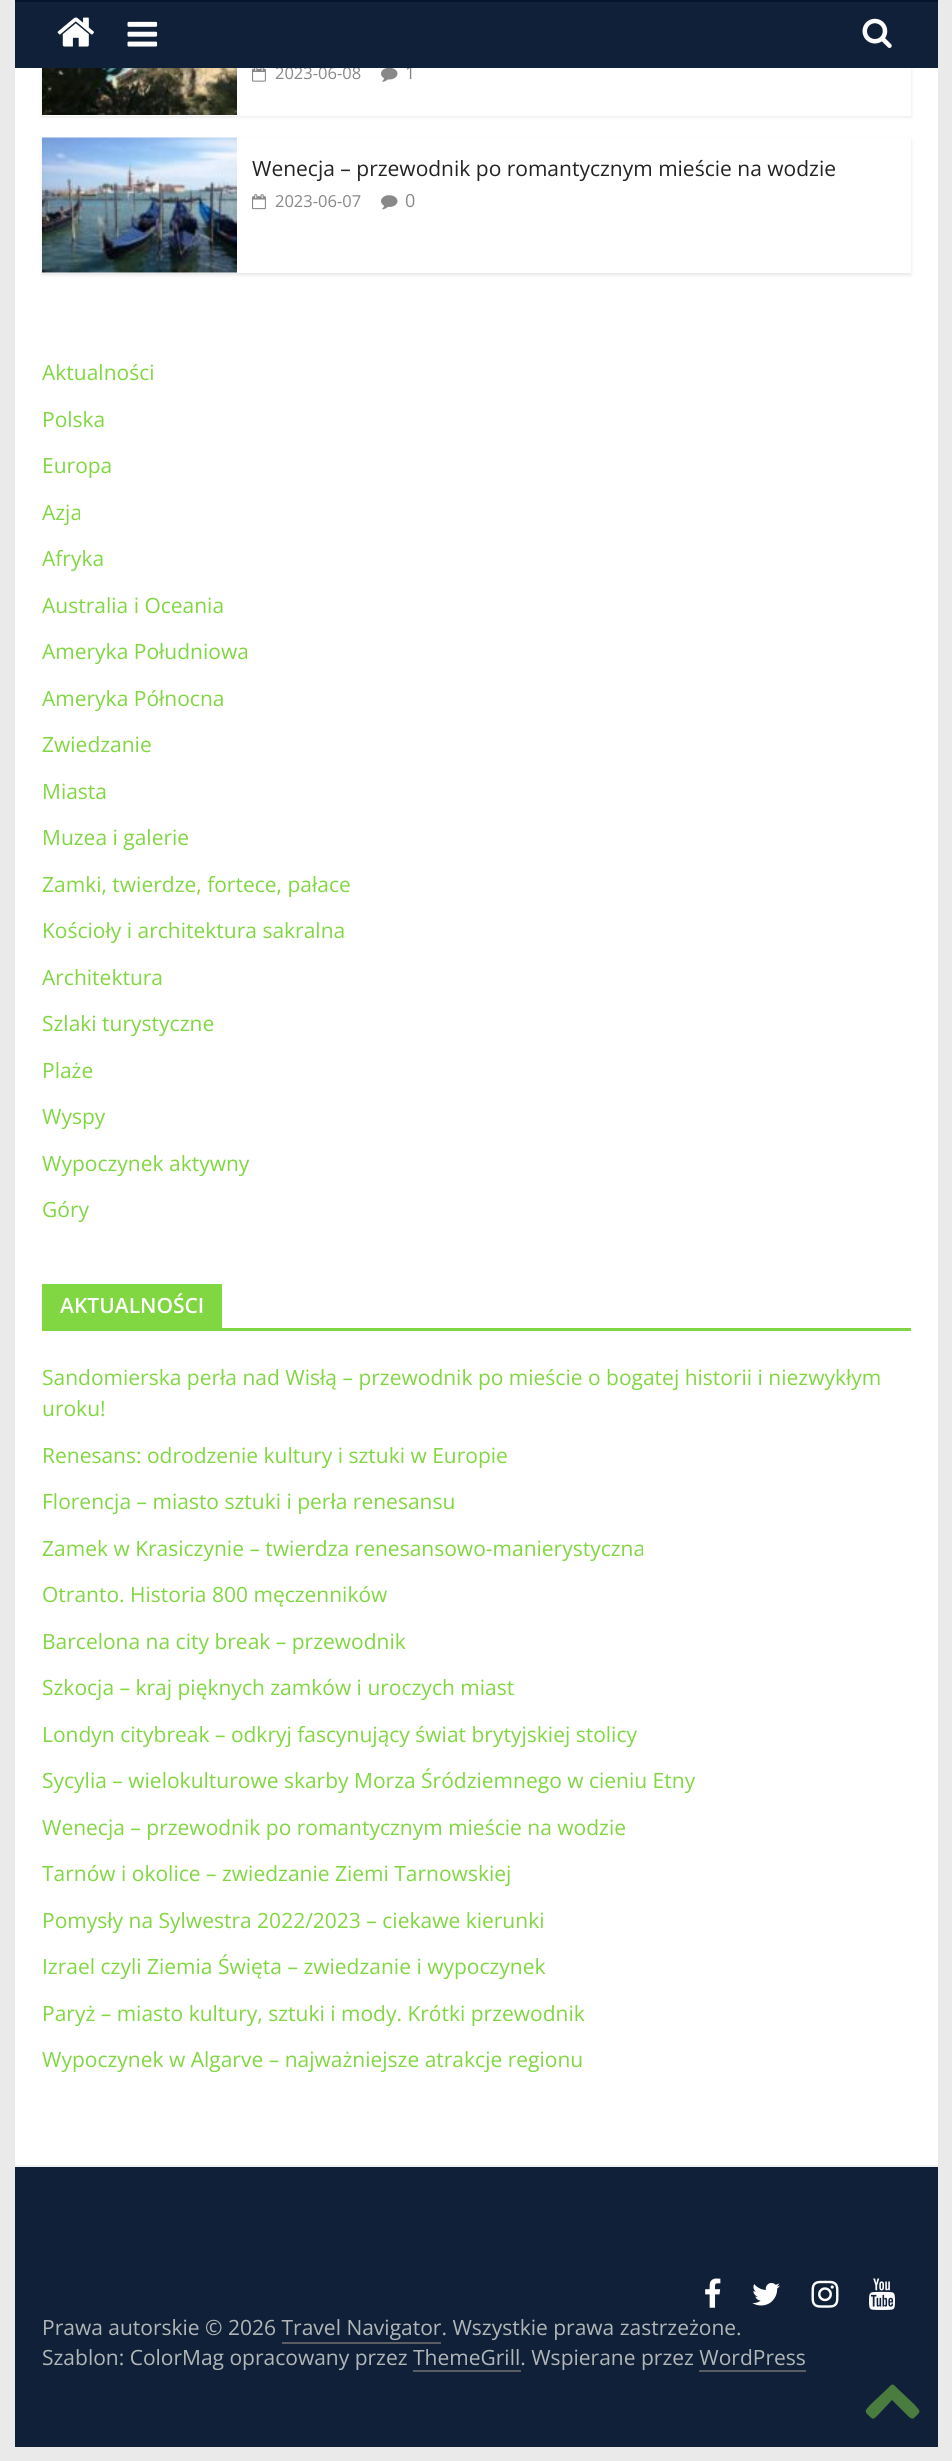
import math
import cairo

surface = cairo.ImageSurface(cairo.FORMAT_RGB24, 952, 2461)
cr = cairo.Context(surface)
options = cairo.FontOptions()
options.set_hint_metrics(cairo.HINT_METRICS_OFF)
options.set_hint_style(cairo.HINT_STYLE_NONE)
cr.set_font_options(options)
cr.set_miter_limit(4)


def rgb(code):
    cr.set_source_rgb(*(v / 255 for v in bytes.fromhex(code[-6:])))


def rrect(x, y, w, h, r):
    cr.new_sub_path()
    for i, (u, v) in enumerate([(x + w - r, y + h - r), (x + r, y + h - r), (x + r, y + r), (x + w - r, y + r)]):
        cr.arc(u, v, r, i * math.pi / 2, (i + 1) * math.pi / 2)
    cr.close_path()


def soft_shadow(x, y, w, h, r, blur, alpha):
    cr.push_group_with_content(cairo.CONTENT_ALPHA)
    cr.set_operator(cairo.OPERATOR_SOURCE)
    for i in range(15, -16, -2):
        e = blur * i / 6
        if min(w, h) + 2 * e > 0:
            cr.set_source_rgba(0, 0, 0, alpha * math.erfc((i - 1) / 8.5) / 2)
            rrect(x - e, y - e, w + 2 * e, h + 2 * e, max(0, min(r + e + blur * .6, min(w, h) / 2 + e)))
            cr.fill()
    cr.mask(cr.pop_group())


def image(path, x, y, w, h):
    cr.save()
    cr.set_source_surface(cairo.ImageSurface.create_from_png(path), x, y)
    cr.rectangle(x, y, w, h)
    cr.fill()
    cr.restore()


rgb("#eaeaea")
cr.paint()
rgb("#ffffff")
cr.rectangle(15, 68, 923, 2097)
cr.fill()
rgb("#000000")
soft_shadow(42, -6, 869, 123, 0, 2, 0.1)
rgb("#05142d")
cr.rectangle(15, 0, 923, 2)
cr.fill()
rgb("#ffffff")
cr.rectangle(42, 68, 869, 48)
cr.fill()
image("img/4.png", 42, 68, 195, 47)
image("img/5.png", 252, 68, 14, 14)
image("img/6.png", 381, 68, 17, 14)
rgb("#000000")
soft_shadow(42, 140, 869, 135, 0, 2, 0.1)
rgb("#ffffff")
cr.rectangle(42, 138, 869, 135)
cr.fill()
image("img/7.png", 42, 137, 195, 136)
image("img/8.png", 252, 194, 14, 16)
image("img/9.png", 381, 195, 17, 15)
for x, y, w, h, color in [
    (42, 1328, 869, 3, "#81d742"),
    (42, 1284, 180, 44, "#81d742"),
    (15, 2167, 923, 280, "#102039"),
    (15, 2165, 923, 2, "#f2f2f2"),
]:
    rgb(color)
    cr.rectangle(x, y, w, h)
    cr.fill()
image("img/10.png", 705, 2278, 16, 30)
image("img/11.png", 752, 2283, 28, 23)
image("img/12.png", 811, 2280, 28, 28)
image("img/13.png", 869, 2278, 26, 32)
rgb("#5a5d62")
cr.rectangle(282, 2342, 159, 2)
cr.fill()
rgb("#497c3e")
cr.new_path()
cr.move_to(919, 2413)
cr.curve_to(913, 2419, 913, 2421, 907, 2415)
cr.line_to(892, 2400)
cr.line_to(878, 2415)
cr.curve_to(872, 2421, 873, 2419, 867, 2414)
cr.curve_to(864, 2410, 867, 2409, 870, 2405)
cr.line_to(887, 2389)
cr.curve_to(893, 2383, 892, 2383, 898, 2389)
cr.line_to(915, 2405)
cr.curve_to(915, 2406, 921, 2410, 919, 2413)
cr.close_path()
cr.fill()
cr.select_font_face("Open Sans")
cr.set_font_size(16.5)
rgb("#888888")
cr.move_to(275, 79)
cr.show_text("2023-06-08")
cr.set_font_size(18)
cr.move_to(405, 79)
cr.show_text("1")
rgb("#102039")
cr.rectangle(15, 2, 923, 66)
cr.fill()
image("img/2.png", 127, 21, 31, 26)
image("img/3.png", 862, 18, 30, 30)
image("img/1.png", 57, 17, 37, 30)
cr.set_font_size(21)
rgb("#232323")
cr.move_to(252, 176)
cr.show_text("Wenecja – przewodnik po romantycznym mieście na wodzie")
cr.set_font_size(16.5)
rgb("#888888")
cr.move_to(275, 207)
cr.show_text("2023-06-07")
cr.set_font_size(18)
cr.move_to(405, 207)
cr.show_text("0")
cr.set_font_size(21)
rgb("#81d742")
for x, y, s in [
    (42, 380, "Aktualności"),
    (42, 427, "Polska"),
    (42, 473, "Europa"),
    (42, 520, "Azja"),
    (42, 566, "Afryka"),
    (42, 613, "Australia i Oceania"),
    (42, 659, "Ameryka Południowa"),
    (42, 706, "Ameryka Północna"),
    (42, 752, "Zwiedzanie"),
    (42, 799, "Miasta"),
    (42, 845, "Muzea i galerie"),
    (42, 892, "Zamki, twierdze, fortece, pałace"),
    (42, 938, "Kościoły i architektura sakralna"),
    (42, 985, "Architektura"),
    (42, 1031, "Szlaki turystyczne"),
    (42, 1078, "Plaże"),
    (42, 1124, "Wyspy"),
    (42, 1171, "Wypoczynek aktywny"),
    (42, 1217, "Góry"),
]:
    cr.move_to(x, y)
    cr.show_text(s)
cr.select_font_face("Open Sans SemiBold")
rgb("#ffffff")
cr.move_to(60, 1313)
cr.show_text("AKTUALNOŚCI")
cr.select_font_face("Open Sans")
rgb("#81d742")
for x, y, s in [
    (42, 1385, "Sandomierska perła nad Wisłą – przewodnik po mieście o bogatej historii i niezwykłym"),
    (42, 1416, "uroku!"),
    (42, 1463, "Renesans: odrodzenie kultury i sztuki w Europie"),
    (42, 1509, "Florencja – miasto sztuki i perła renesansu"),
    (42, 1556, "Zamek w Krasiczynie – twierdza renesansowo-manierystyczna"),
    (42, 1602, "Otranto. Historia 800 męczenników"),
    (42, 1649, "Barcelona na city break – przewodnik"),
    (42, 1695, "Szkocja – kraj pięknych zamków i uroczych miast"),
    (42, 1742, "Londyn citybreak – odkryj fascynujący świat brytyjskiej stolicy"),
    (42, 1788, "Sycylia – wielokulturowe skarby Morza Śródziemnego w cieniu Etny"),
    (42, 1835, "Wenecja – przewodnik po romantycznym mieście na wodzie"),
    (42, 1881, "Tarnów i okolice – zwiedzanie Ziemi Tarnowskiej"),
    (42, 1928, "Pomysły na Sylwestra 2022/2023 – ciekawe kierunki"),
    (42, 1974, "Izrael czyli Ziemia Święta – zwiedzanie i wypoczynek"),
    (42, 2021, "Paryż – miasto kultury, sztuki i mody. Krótki przewodnik"),
    (42, 2067, "Wypoczynek w Algarve – najważniejsze atrakcje regionu"),
]:
    cr.move_to(x, y)
    cr.show_text(s)
rgb("#b1b6b6")
cr.move_to(42, 2335)
cr.show_text("Prawa autorskie © 2026 Travel Navigator. Wszystkie prawa zastrzeżone.")
cr.move_to(42, 2365)
cr.show_text("Szablon: ColorMag opracowany przez ThemeGrill. Wspierane przez WordPress")
rgb("#5a5d62")
cr.rectangle(413, 2370, 108, 2)
cr.fill()
cr.rectangle(699, 2370, 107, 2)
cr.fill()
surface.write_to_png("page.png")
